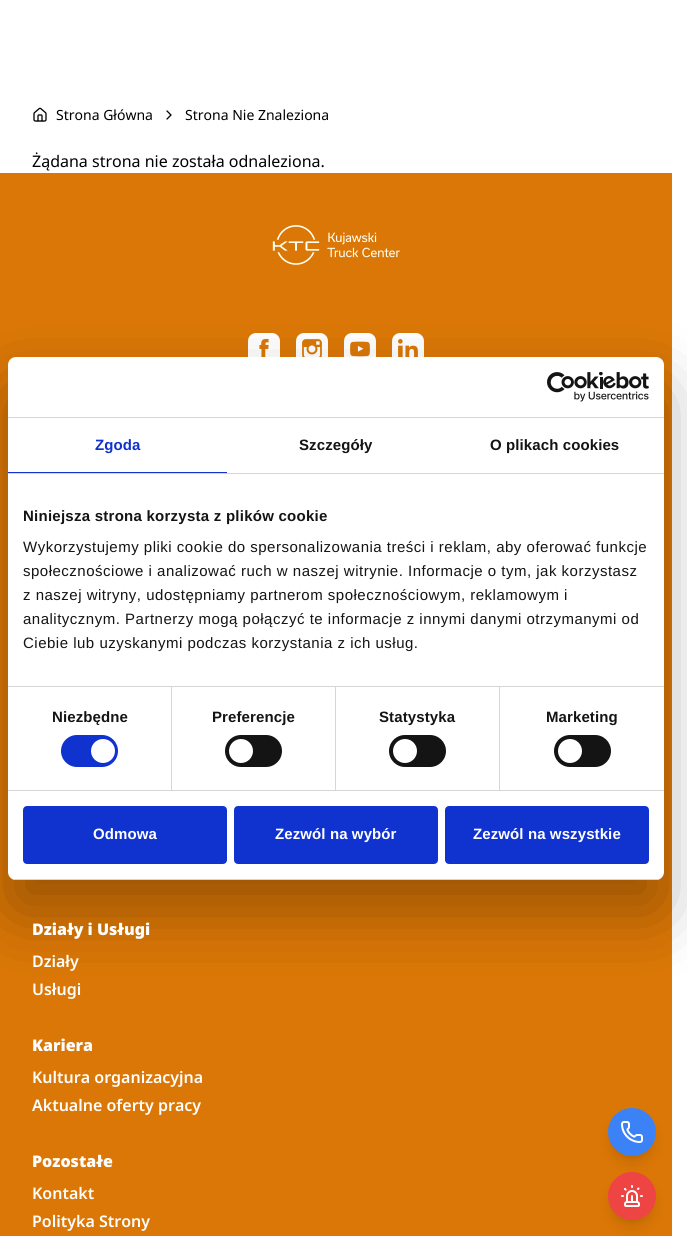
import math
import cairo

surface = cairo.ImageSurface(cairo.FORMAT_RGB24, 687, 1236)
cr = cairo.Context(surface)
options = cairo.FontOptions()
options.set_hint_metrics(cairo.HINT_METRICS_OFF)
options.set_hint_style(cairo.HINT_STYLE_NONE)
cr.set_font_options(options)
cr.set_miter_limit(4)


def rgb(code):
    cr.set_source_rgb(*(v / 255 for v in bytes.fromhex(code[-6:])))


def tracked(x, y, s, letter, word):
    cr.move_to(x, y)
    for ch in s:
        cr.show_text(ch)
        cr.rel_move_to(letter + word * (ch == ' '), 0)


def rrect(x, y, w, h, r):
    cr.new_sub_path()
    for i, (u, v) in enumerate([(x + w - r, y + h - r), (x + r, y + h - r), (x + r, y + r), (x + w - r, y + r)]):
        cr.arc(u, v, r, i * math.pi / 2, (i + 1) * math.pi / 2)
    cr.close_path()


def soft_shadow(x, y, w, h, r, blur, alpha):
    cr.push_group_with_content(cairo.CONTENT_ALPHA)
    cr.set_operator(cairo.OPERATOR_SOURCE)
    for i in range(15, -16, -2):
        e = blur * i / 6
        if min(w, h) + 2 * e > 0:
            cr.set_source_rgba(0, 0, 0, alpha * math.erfc((i - 1) / 8.5) / 2)
            rrect(x - e, y - e, w + 2 * e, h + 2 * e, max(0, min(r + e + blur * .6, min(w, h) / 2 + e)))
            cr.fill()
    cr.mask(cr.pop_group())


def image(path, x, y, w, h):
    cr.save()
    cr.set_source_surface(cairo.ImageSurface.create_from_png(path), x, y)
    cr.rectangle(x, y, w, h)
    cr.fill()
    cr.restore()


rgb("#ffffff")
cr.paint()
image("img/1.png", 33, 107, 14, 15)
cr.new_path()
cr.move_to(167, 119)
cr.line_to(171, 115)
cr.line_to(167, 111)
rgb("#000000")
cr.set_line_width(1.3)
cr.set_line_cap(cairo.LINE_CAP_ROUND)
cr.set_line_join(cairo.LINE_JOIN_ROUND)
cr.stroke()
rgb("#db7706")
cr.rectangle(0, 173, 672, 1063)
cr.fill()
image("img/2.png", 272, 225, 128, 40)
image("img/3.png", 248, 333, 32, 24)
image("img/4.png", 296, 333, 32, 24)
image("img/5.png", 344, 333, 32, 24)
image("img/6.png", 392, 333, 32, 24)
rgb("#000000")
soft_shadow(612, 1116, 40, 40, 20, 3, 0.1)
soft_shadow(611, 1121, 42, 42, 21, 7.5, 0.1)
rgb("#3b82f6")
cr.arc(632, 1132, 24, 0, 2 * math.pi)
cr.fill()
image("img/7.png", 621, 1121, 22, 22)
rgb("#000000")
soft_shadow(612, 1180, 40, 40, 20, 3, 0.1)
soft_shadow(611, 1185, 42, 42, 21, 7.5, 0.1)
rgb("#ef4444")
cr.arc(632, 1196, 24, 0, 2 * math.pi)
cr.fill()
image("img/8.png", 621, 1185, 22, 22)
rgb("#000000")
soft_shadow(8, 389, 656, 523, 8, 34, 0.3)
rgb("#ffffff")
rrect(8, 357, 656, 523, 8)
cr.fill()
rgb("#d6d6d6")
cr.rectangle(8, 417, 656, 1)
cr.fill()
image("img/9.png", 547, 372, 102, 30)
for x, y, w, h, color in [
    (8, 473, 656, 1, "#d6d6d6"),
    (8, 472, 219, 1, "#1032cf"),
    (8, 686, 656, 1, "#d6d6d6"),
    (8, 790, 656, 1, "#d6d6d6"),
    (171, 687, 1, 103, "#d6d6d6"),
]:
    rgb(color)
    cr.rectangle(x, y, w, h)
    cr.fill()
rgb("#1032cf")
rrect(61, 735, 57, 32, 16)
cr.fill()
rgb("#ffffff")
cr.arc(103, 751, 12, 0, 2 * math.pi)
cr.fill()
rgb("#d6d6d6")
cr.rectangle(335, 687, 1, 103)
cr.fill()
rgb("#141414")
rrect(225, 735, 57, 32, 16)
cr.fill()
rgb("#ffffff")
cr.arc(241, 751, 12, 0, 2 * math.pi)
cr.fill()
rgb("#d6d6d6")
cr.rectangle(499, 687, 1, 103)
cr.fill()
rgb("#141414")
rrect(389, 735, 57, 32, 16)
cr.fill()
rgb("#ffffff")
cr.arc(405, 751, 12, 0, 2 * math.pi)
cr.fill()
rgb("#141414")
rrect(554, 735, 57, 32, 16)
cr.fill()
rgb("#ffffff")
cr.arc(570, 751, 12, 0, 2 * math.pi)
cr.fill()
cr.save()
rrect(8, 357, 656, 523, 8)
cr.clip()
rgb("#d6d6d6")
cr.rectangle(8, 879, 656, 1)
cr.fill()
cr.restore()
rgb("#1032cf")
rrect(24, 807, 202, 56, 3)
cr.fill_preserve()
cr.set_line_width(2)
cr.set_line_cap(cairo.LINE_CAP_BUTT)
cr.set_line_join(cairo.LINE_JOIN_MITER)
cr.stroke()
rrect(235, 807, 202, 56, 3)
cr.fill_preserve()
cr.stroke()
rrect(446, 807, 202, 56, 3)
cr.fill_preserve()
cr.stroke()
cr.select_font_face("Noto Sans")
cr.set_font_size(14)
rgb("#000000")
cr.move_to(56, 120)
cr.show_text("Strona Główna")
cr.move_to(185, 120)
cr.show_text("Strona Nie Znaleziona")
cr.set_font_size(16)
cr.move_to(32, 167)
cr.show_text("Żądana strona nie została odnaleziona.")
cr.select_font_face("Noto Sans Black")
rgb("#ffffff")
cr.move_to(32, 935)
cr.show_text("Działy i Usługi")
cr.select_font_face("Noto Sans SemiBold")
cr.move_to(32, 967)
cr.show_text("Działy")
cr.move_to(32, 995)
cr.show_text("Usługi")
cr.select_font_face("Noto Sans Black")
cr.move_to(32, 1051)
cr.show_text("Kariera")
cr.select_font_face("Noto Sans SemiBold")
cr.move_to(32, 1083)
cr.show_text("Kultura organizacyjna")
cr.move_to(32, 1111)
cr.show_text("Aktualne oferty pracy")
cr.select_font_face("Noto Sans Black")
cr.move_to(32, 1167)
cr.show_text("Pozostałe")
cr.select_font_face("Noto Sans SemiBold")
cr.move_to(32, 1199)
cr.show_text("Kontakt")
cr.move_to(32, 1227)
cr.show_text("Polityka Strony")
cr.select_font_face("Liberation Sans", cairo.FONT_SLANT_NORMAL, cairo.FONT_WEIGHT_BOLD)
cr.set_font_size(15)
rgb("#1032cf")
tracked(95, 450, "Zgoda", 0.1, 0)
rgb("#141414")
tracked(299, 450, "Szczegóły", 0.1, 0)
tracked(490, 450, "O plikach cookies", 0.1, 0)
tracked(23, 521, "Niniejsza strona korzysta z plików cookie", 0.25, 0)
cr.select_font_face("Liberation Sans")
for x, y, s in [
    (23, 552, "Wykorzystujemy pliki cookie do spersonalizowania treści i reklam, aby oferować funkcje"),
    (23, 576, "społecznościowe i analizować ruch w naszej witrynie. Informacje o tym, jak korzystasz"),
    (23, 600, "z naszej witryny, udostępniamy partnerom społecznościowym, reklamowym i"),
    (23, 624, "analitycznym. Partnerzy mogą połączyć te informacje z innymi danymi otrzymanymi od"),
    (23, 648, "Ciebie lub uzyskanymi podczas korzystania z ich usług."),
]:
    tracked(x, y, s, 0.5, 0)
cr.select_font_face("Liberation Sans", cairo.FONT_SLANT_NORMAL, cairo.FONT_WEIGHT_BOLD)
for x, y, s in [
    (52, 722, "Niezbędne"),
    (212, 722, "Preferencje"),
    (379, 722, "Statystyka"),
    (546, 722, "Marketing"),
]:
    tracked(x, y, s, 0.1, 0)
rgb("#ffffff")
for x, y, s in [
    (93, 839, "Odmowa"),
    (275, 839, "Zezwól na wybór"),
    (473, 839, "Zezwól na wszystkie"),
]:
    tracked(x, y, s, 0.1, 0)
surface.write_to_png("page.png")
